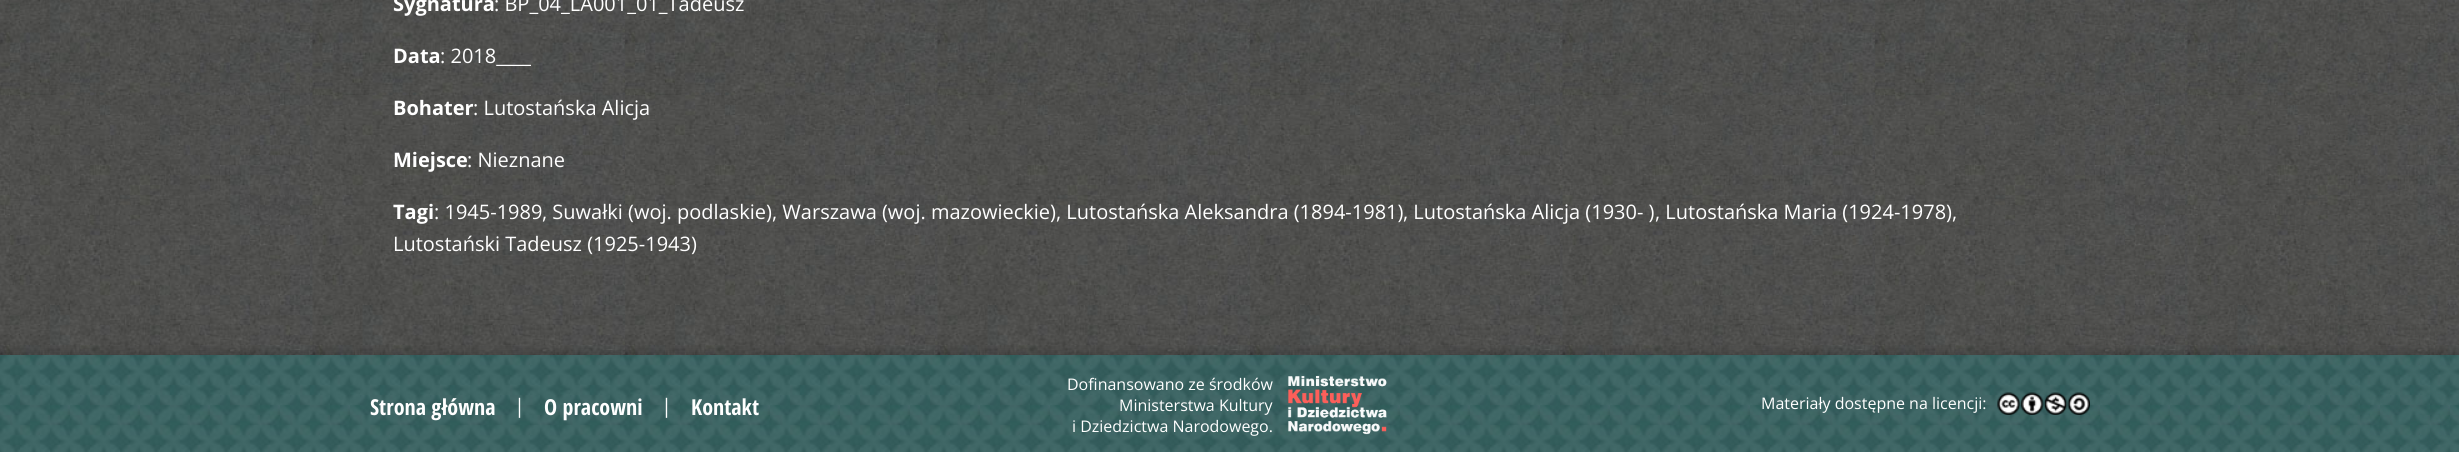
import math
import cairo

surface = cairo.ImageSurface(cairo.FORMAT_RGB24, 2459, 452)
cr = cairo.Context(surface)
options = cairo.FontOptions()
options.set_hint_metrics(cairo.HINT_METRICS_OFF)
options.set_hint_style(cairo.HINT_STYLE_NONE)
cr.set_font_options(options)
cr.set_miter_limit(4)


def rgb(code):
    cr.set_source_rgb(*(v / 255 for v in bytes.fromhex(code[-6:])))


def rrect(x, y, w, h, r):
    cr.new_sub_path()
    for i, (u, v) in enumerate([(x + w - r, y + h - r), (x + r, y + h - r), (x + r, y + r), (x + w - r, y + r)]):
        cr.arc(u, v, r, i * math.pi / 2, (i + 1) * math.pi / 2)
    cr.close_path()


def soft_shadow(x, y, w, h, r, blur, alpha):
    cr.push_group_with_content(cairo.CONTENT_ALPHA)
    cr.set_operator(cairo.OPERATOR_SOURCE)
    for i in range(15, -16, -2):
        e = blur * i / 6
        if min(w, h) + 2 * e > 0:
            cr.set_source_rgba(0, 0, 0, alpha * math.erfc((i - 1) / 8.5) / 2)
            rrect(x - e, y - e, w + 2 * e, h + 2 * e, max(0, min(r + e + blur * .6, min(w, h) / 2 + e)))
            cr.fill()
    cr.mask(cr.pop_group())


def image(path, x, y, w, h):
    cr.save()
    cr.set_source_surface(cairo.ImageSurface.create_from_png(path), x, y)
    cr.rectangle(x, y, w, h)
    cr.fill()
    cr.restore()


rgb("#ffffff")
cr.paint()
image("img/1.png", 0, 0, 2459, 355)
rgb("#000000")
soft_shadow(0, 353, 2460, 97, 0, 6, 0.2)
image("img/2.png", 0, 355, 2459, 97)
image("img/3.png", 1287, 376, 100, 59)
image("img/4.png", 1997, 392, 93, 23)
cr.select_font_face("Open Sans", cairo.FONT_SLANT_NORMAL, cairo.FONT_WEIGHT_BOLD)
cr.set_font_size(20)
rgb("#ffffff")
cr.move_to(393, 11)
cr.show_text("Sygnatura")
cr.select_font_face("Open Sans")
cr.move_to(494, 11)
cr.show_text(": BP_04_LA001_01_Tadeusz")
cr.select_font_face("Open Sans", cairo.FONT_SLANT_NORMAL, cairo.FONT_WEIGHT_BOLD)
cr.move_to(393, 63)
cr.show_text("Data")
cr.select_font_face("Open Sans")
cr.move_to(440, 63)
cr.show_text(": 2018____")
cr.select_font_face("Open Sans", cairo.FONT_SLANT_NORMAL, cairo.FONT_WEIGHT_BOLD)
cr.move_to(393, 115)
cr.show_text("Bohater")
cr.select_font_face("Open Sans")
cr.move_to(473, 115)
cr.show_text(": Lutostańska Alicja")
cr.select_font_face("Open Sans", cairo.FONT_SLANT_NORMAL, cairo.FONT_WEIGHT_BOLD)
cr.move_to(393, 167)
cr.show_text("Miejsce")
cr.select_font_face("Open Sans")
cr.move_to(467, 167)
cr.show_text(": Nieznane")
cr.select_font_face("Open Sans", cairo.FONT_SLANT_NORMAL, cairo.FONT_WEIGHT_BOLD)
cr.move_to(393, 219)
cr.show_text("Tagi")
cr.select_font_face("Open Sans")
for x, y, s in [
    (434, 219, ": 1945-1989"),
    (542, 219, ", Suwałki (woj. podlaskie)"),
    (772, 219, ", Warszawa (woj. mazowieckie)"),
    (1056, 219, ", Lutostańska Aleksandra (1894-1981)"),
    (1403, 219, ", Lutostańska Alicja (1930- )"),
    (1655, 219, ", Lutostańska Maria (1924-1978)"),
    (1952, 219, ","),
    (393, 251, "Lutostański Tadeusz (1925-1943)"),
]:
    cr.move_to(x, y)
    cr.show_text(s)
cr.select_font_face("Open Sans Condensed", cairo.FONT_SLANT_NORMAL, cairo.FONT_WEIGHT_BOLD)
cr.set_font_size(22)
cr.move_to(370, 415)
cr.show_text("Strona główna")
cr.select_font_face("Open Sans")
cr.set_font_size(20)
cr.move_to(514, 413)
cr.show_text("|")
cr.select_font_face("Open Sans Condensed", cairo.FONT_SLANT_NORMAL, cairo.FONT_WEIGHT_BOLD)
cr.set_font_size(22)
cr.move_to(544, 415)
cr.show_text("O pracowni")
cr.select_font_face("Open Sans")
cr.set_font_size(20)
cr.move_to(661, 413)
cr.show_text("|")
cr.select_font_face("Open Sans Condensed", cairo.FONT_SLANT_NORMAL, cairo.FONT_WEIGHT_BOLD)
cr.set_font_size(22)
cr.move_to(691, 415)
cr.show_text("Kontakt")
cr.select_font_face("Open Sans")
cr.set_font_size(16)
for x, y, s in [
    (1067, 390, "Dofinansowano ze środków"),
    (1119, 411, "Ministerstwa Kultury"),
    (1072, 432, "i Dziedzictwa Narodowego."),
    (1761, 409, "Materiały dostępne na licencji:"),
]:
    cr.move_to(x, y)
    cr.show_text(s)
surface.write_to_png("page.png")
